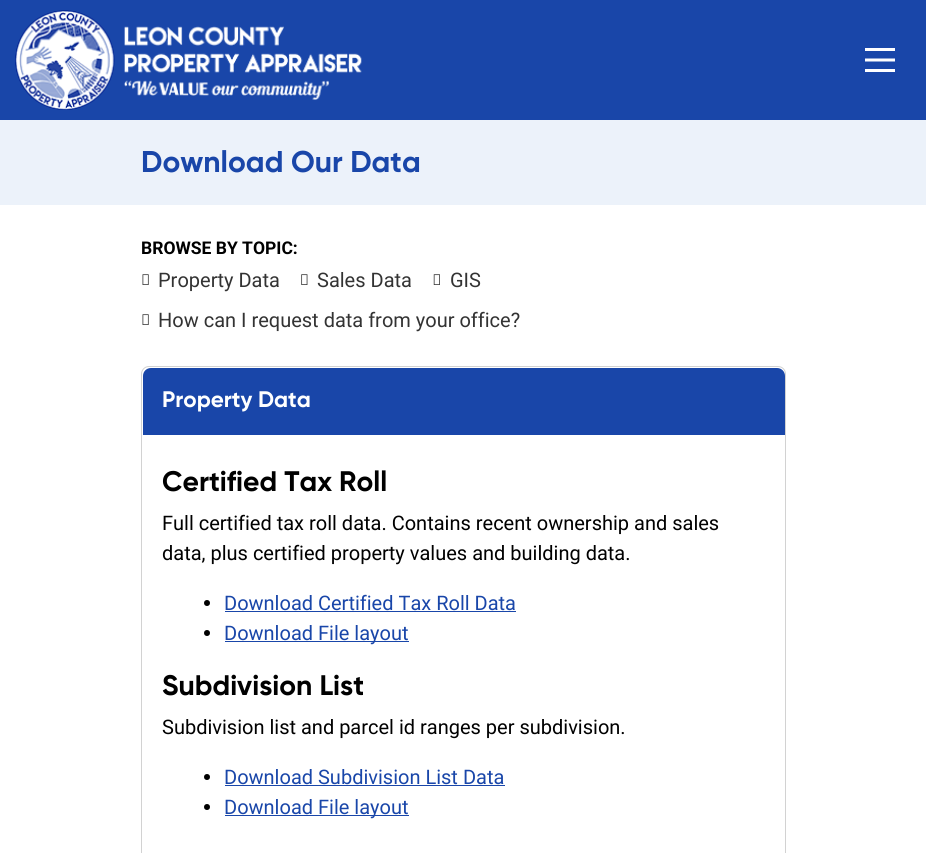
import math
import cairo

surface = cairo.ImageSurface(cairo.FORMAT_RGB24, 926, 853)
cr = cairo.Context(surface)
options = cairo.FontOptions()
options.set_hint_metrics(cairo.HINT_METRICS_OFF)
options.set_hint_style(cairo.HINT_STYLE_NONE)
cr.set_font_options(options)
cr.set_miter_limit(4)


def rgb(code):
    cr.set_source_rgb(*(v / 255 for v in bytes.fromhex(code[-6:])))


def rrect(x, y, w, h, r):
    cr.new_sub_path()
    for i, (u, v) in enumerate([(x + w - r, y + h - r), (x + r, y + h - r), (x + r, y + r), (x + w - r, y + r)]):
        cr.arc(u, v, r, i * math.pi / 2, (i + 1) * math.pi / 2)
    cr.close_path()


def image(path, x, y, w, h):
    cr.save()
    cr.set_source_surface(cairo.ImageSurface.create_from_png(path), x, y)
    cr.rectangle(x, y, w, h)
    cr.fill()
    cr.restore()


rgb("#ffffff")
cr.paint()
rgb("#1946a9")
cr.rectangle(0, 0, 926, 120)
cr.fill()
image("img/1.png", 15, 10, 347, 100)
rgb("#ffffff")
cr.rectangle(865, 48, 30, 3)
cr.fill()
cr.new_path()
cr.move_to(865, 60)
cr.line_to(895, 60)
cr.set_line_width(3)
cr.stroke()
cr.rectangle(865, 69, 30, 3)
cr.fill()
rgb("#ecf2fa")
cr.rectangle(0, 120, 926, 85)
cr.fill()
image("img/2.png", 142, 274, 7, 11)
image("img/3.png", 301, 274, 7, 11)
image("img/4.png", 433, 274, 7, 11)
image("img/2.png", 142, 314, 7, 11)
rrect(141.5, 366.5, 644, 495, 7.5)
rgb("#d2d2d2")
cr.set_line_width(1)
cr.stroke()
rgb("#1946a9")
cr.new_path()
cr.move_to(151, 368)
cr.line_to(777, 368)
cr.curve_to(781.5, 368, 785, 371.5, 785, 376)
cr.line_to(785, 435)
cr.line_to(143, 435)
cr.line_to(143, 376)
cr.curve_to(143, 371.5, 146.5, 368, 151, 368)
cr.close_path()
cr.fill()
rgb("#000000")
cr.arc(207, 603, 3, 0, 2 * math.pi)
cr.fill()
rgb("#1946a9")
cr.rectangle(225, 611, 291, 1)
cr.fill()
rgb("#000000")
cr.arc(207, 633, 3, 0, 2 * math.pi)
cr.fill()
rgb("#1946a9")
cr.rectangle(225, 641, 184, 1)
cr.fill()
rgb("#000000")
cr.arc(207, 777, 3, 0, 2 * math.pi)
cr.fill()
rgb("#1946a9")
cr.rectangle(225, 785, 280, 1)
cr.fill()
rgb("#000000")
cr.arc(207, 807, 3, 0, 2 * math.pi)
cr.fill()
rgb("#1946a9")
cr.rectangle(225, 815, 184, 1)
cr.fill()
cr.select_font_face("Gilroy", cairo.FONT_SLANT_NORMAL, cairo.FONT_WEIGHT_BOLD)
cr.set_font_size(30)
cr.move_to(141, 172)
cr.show_text("Download Our Data")
cr.select_font_face("Roboto", cairo.FONT_SLANT_NORMAL, cairo.FONT_WEIGHT_BOLD)
cr.set_font_size(17.5)
rgb("#000000")
cr.move_to(141, 254)
cr.show_text("BROWSE BY TOPIC:")
cr.select_font_face("Roboto")
cr.set_font_size(20)
rgb("#333333")
for x, y, s in [
    (158, 287, "Property Data"),
    (317, 287, "Sales Data"),
    (450, 287, "GIS"),
    (158, 327, "How can I request data from your office?"),
]:
    cr.move_to(x, y)
    cr.show_text(s)
cr.select_font_face("Gilroy", cairo.FONT_SLANT_NORMAL, cairo.FONT_WEIGHT_BOLD)
cr.set_font_size(22.5)
rgb("#ffffff")
cr.move_to(162, 407)
cr.show_text("Property Data")
cr.set_font_size(28.25)
rgb("#000000")
cr.move_to(162, 491)
cr.show_text("Certified Tax Roll")
cr.select_font_face("Roboto")
cr.set_font_size(20)
cr.move_to(162, 530)
cr.show_text("Full certified tax roll data. Contains recent ownership and sales")
cr.move_to(162, 560)
cr.show_text("data, plus certified property values and building data.")
rgb("#1946a9")
cr.move_to(224, 610)
cr.show_text("Download Certified Tax Roll Data")
cr.move_to(224, 640)
cr.show_text("Download File layout")
cr.select_font_face("Gilroy", cairo.FONT_SLANT_NORMAL, cairo.FONT_WEIGHT_BOLD)
cr.set_font_size(28.25)
rgb("#000000")
cr.move_to(162, 695)
cr.show_text("Subdivision List")
cr.select_font_face("Roboto")
cr.set_font_size(20)
cr.move_to(162, 734)
cr.show_text("Subdivision list and parcel id ranges per subdivision.")
rgb("#1946a9")
cr.move_to(224, 784)
cr.show_text("Download Subdivision List Data")
cr.move_to(224, 814)
cr.show_text("Download File layout")
surface.write_to_png("page.png")
